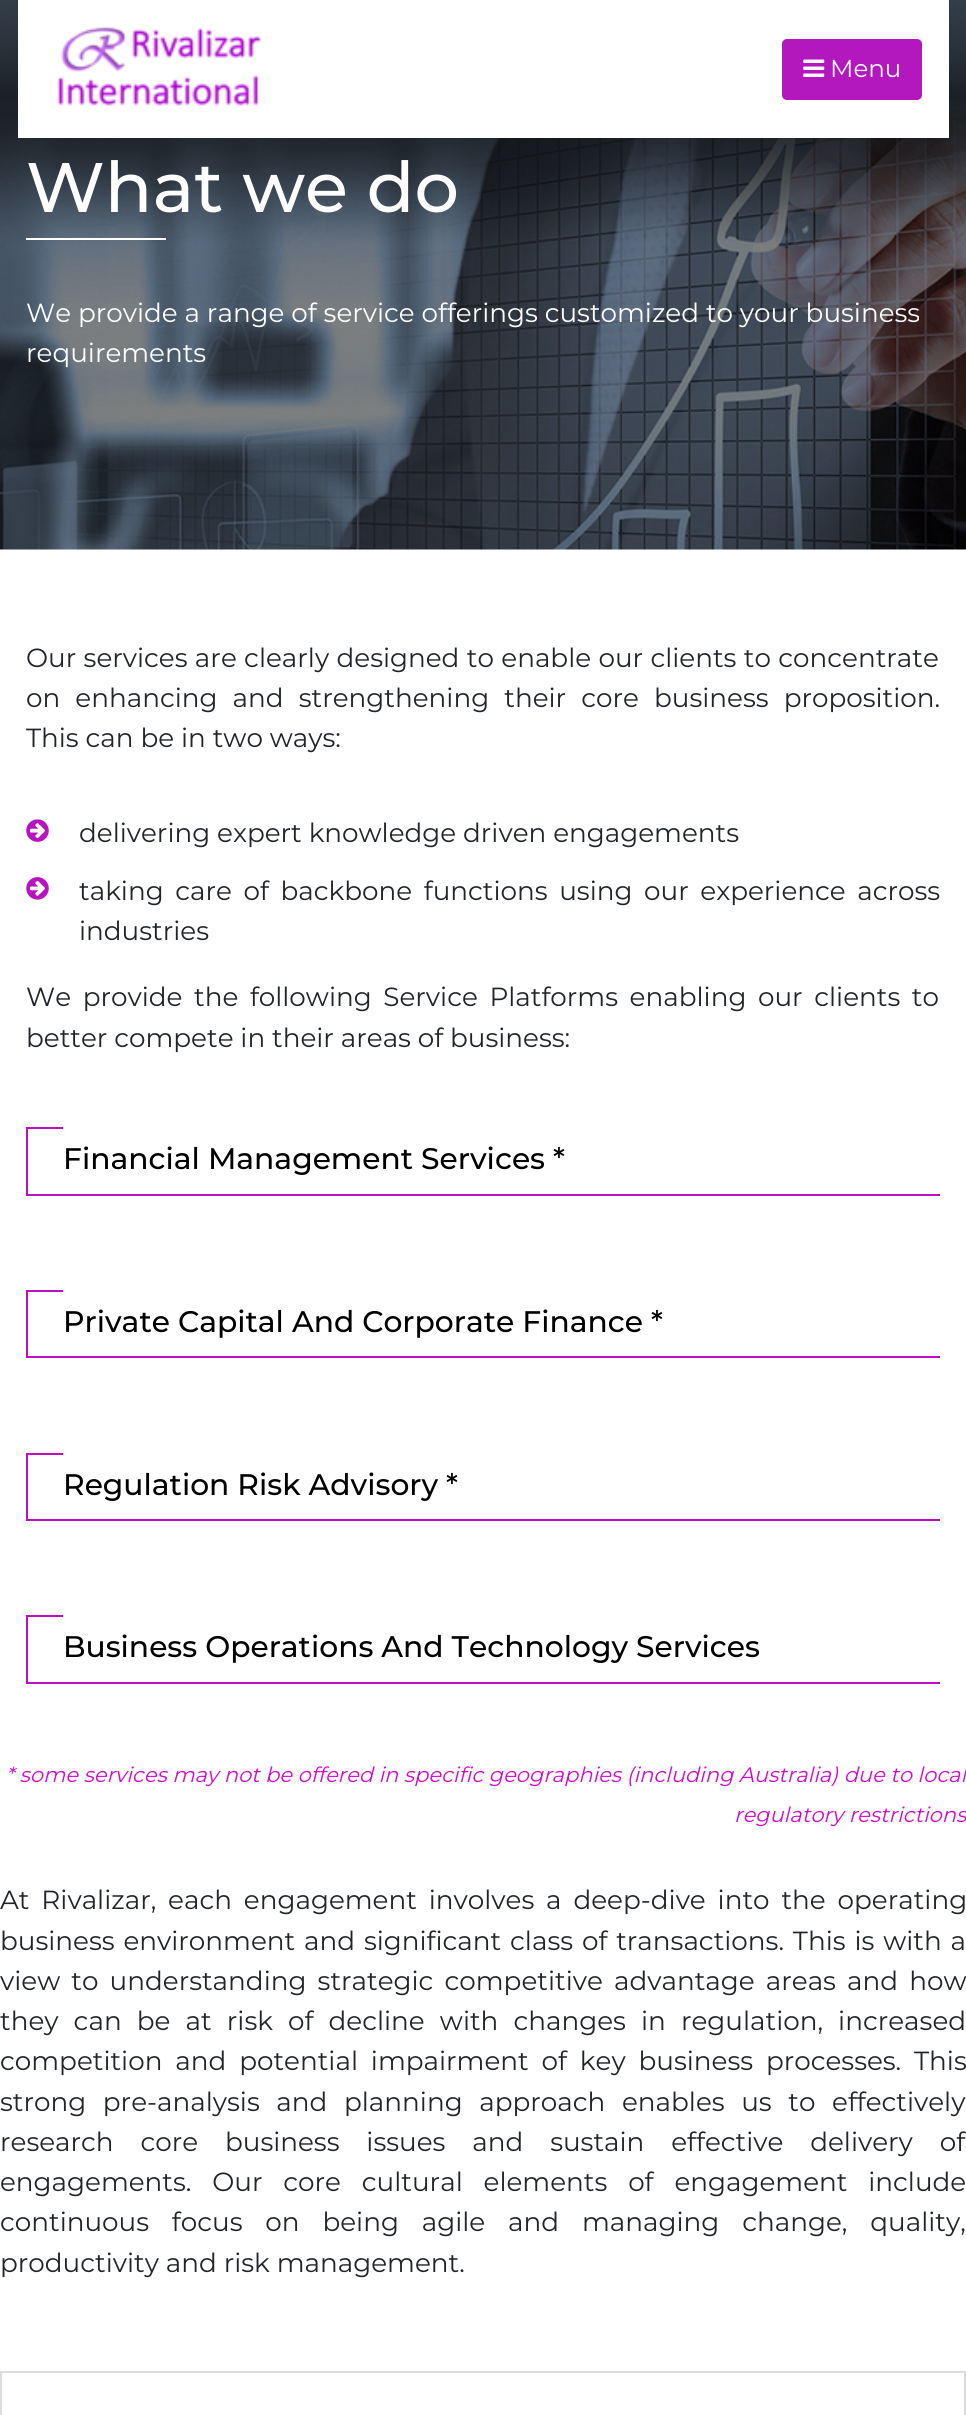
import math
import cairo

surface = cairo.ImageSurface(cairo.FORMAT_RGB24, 966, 2415)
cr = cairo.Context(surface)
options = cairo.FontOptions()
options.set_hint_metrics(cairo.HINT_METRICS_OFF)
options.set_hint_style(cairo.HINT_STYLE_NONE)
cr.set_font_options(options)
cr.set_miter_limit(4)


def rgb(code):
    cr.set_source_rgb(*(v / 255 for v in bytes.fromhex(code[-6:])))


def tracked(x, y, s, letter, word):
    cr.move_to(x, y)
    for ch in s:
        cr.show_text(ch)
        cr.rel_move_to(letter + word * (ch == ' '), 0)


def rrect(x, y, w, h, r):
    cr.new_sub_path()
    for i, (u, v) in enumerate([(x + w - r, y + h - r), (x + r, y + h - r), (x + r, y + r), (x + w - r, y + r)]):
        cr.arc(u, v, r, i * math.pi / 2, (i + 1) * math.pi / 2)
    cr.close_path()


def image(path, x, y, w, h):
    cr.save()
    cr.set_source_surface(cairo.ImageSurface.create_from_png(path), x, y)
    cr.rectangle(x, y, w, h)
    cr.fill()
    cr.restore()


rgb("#ffffff")
cr.paint()
image("img/3.png", 0, 0, 966, 550)
rgb("#ffffff")
cr.rectangle(18, 0, 931, 138)
cr.fill()
image("img/1.png", 57, 26, 205, 80)
rgb("#b218be")
rrect(782, 39, 140, 61, 5)
cr.fill()
image("img/2.png", 803, 59, 22, 18)
rgb("#ffffff")
cr.rectangle(26, 238, 140, 2)
cr.fill()
image("img/4.png", 26, 819, 23, 23)
image("img/5.png", 26, 877, 23, 23)
for x, y, w, h, color in [
    (26, 1194, 914, 2, "#bc0ec3"),
    (26, 1129, 2, 66, "#bc0ec3"),
    (26, 1127, 37, 2, "#bc0ec3"),
    (26, 1356, 914, 2, "#bc0ec3"),
    (26, 1292, 2, 66, "#bc0ec3"),
    (26, 1290, 37, 2, "#bc0ec3"),
    (26, 1519, 914, 2, "#bc0ec3"),
    (26, 1454, 2, 67, "#bc0ec3"),
    (26, 1453, 37, 2, "#bc0ec3"),
    (26, 1682, 914, 2, "#bc0ec3"),
    (26, 1617, 2, 67, "#bc0ec3"),
    (26, 1615, 37, 2, "#bc0ec3"),
]:
    rgb(color)
    cr.rectangle(x, y, w, h)
    cr.fill()
cr.rectangle(1, 2372, 964, 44)
rgb("#dddddd")
cr.stroke()
cr.select_font_face("Montserrat")
cr.set_font_size(24.5)
rgb("#ffffff")
cr.move_to(830, 77)
cr.show_text("Menu")
cr.select_font_face("Montserrat Medium")
cr.set_font_size(70)
cr.move_to(26, 212)
cr.show_text("What we do")
cr.select_font_face("Montserrat")
cr.set_font_size(26.25)
cr.move_to(26, 322)
cr.show_text("We provide a range of service offerings customized to your business")
cr.move_to(26, 362)
cr.show_text("requirements")
rgb("#212529")
tracked(26, 667, "Our services are clearly designed to enable our clients to concentrate", 0, 0.5)
tracked(26, 707, "on enhancing and strengthening their core business proposition.", 0, 8.25)
cr.move_to(26, 747)
cr.show_text("This can be in two ways:")
cr.move_to(79, 842)
cr.show_text("delivering expert knowledge driven engagements")
tracked(79, 900, "taking care of backbone functions using our experience across", 0, 4.75)
cr.move_to(79, 940)
cr.show_text("industries")
tracked(26, 1006, "We provide the following Service Platforms enabling our clients to", 0, 4.75)
cr.move_to(26, 1047)
cr.show_text("better compete in their areas of business:")
cr.select_font_face("Montserrat Medium")
cr.set_font_size(29.75)
rgb("#000000")
for x, y, s in [
    (63, 1169, "Financial Management Services *"),
    (63, 1332, "Private Capital And Corporate Finance *"),
    (63, 1495, "Regulation Risk Advisory *"),
    (63, 1657, "Business Operations And Technology Services"),
]:
    cr.move_to(x, y)
    cr.show_text(s)
cr.select_font_face("Montserrat", cairo.FONT_SLANT_ITALIC)
cr.set_font_size(21)
rgb("#d10bce")
cr.move_to(6, 1782)
cr.show_text("* some services may not be offered in specific geographies (including Australia) due to local")
cr.move_to(734, 1822)
cr.show_text("regulatory restrictions")
cr.select_font_face("Montserrat")
cr.set_font_size(26.25)
rgb("#212529")
tracked(0, 1909, "At Rivalizar, each engagement involves a deep-dive into the operating", 0, 5)
tracked(0, 1950, "business environment and significant class of transactions. This is with a", 0, 2)
tracked(0, 1990, "view to understanding strategic competitive advantage areas and how", 0, 4.25)
tracked(0, 2030, "they can be at risk of decline with changes in regulation, increased", 0, 8.25)
tracked(0, 2070, "competition and potential impairment of key business processes. This", 0, 6)
tracked(0, 2111, "strong pre-analysis and planning approach enables us to effectively", 0, 9.75)
tracked(0, 2151, "research core business issues and sustain effective delivery of", 0, 20)
tracked(0, 2191, "engagements. Our core cultural elements of engagement include", 0, 14)
tracked(0, 2231, "continuous focus on being agile and managing change, quality,", 0, 16)
cr.move_to(0, 2272)
cr.show_text("productivity and risk management.")
surface.write_to_png("page.png")
